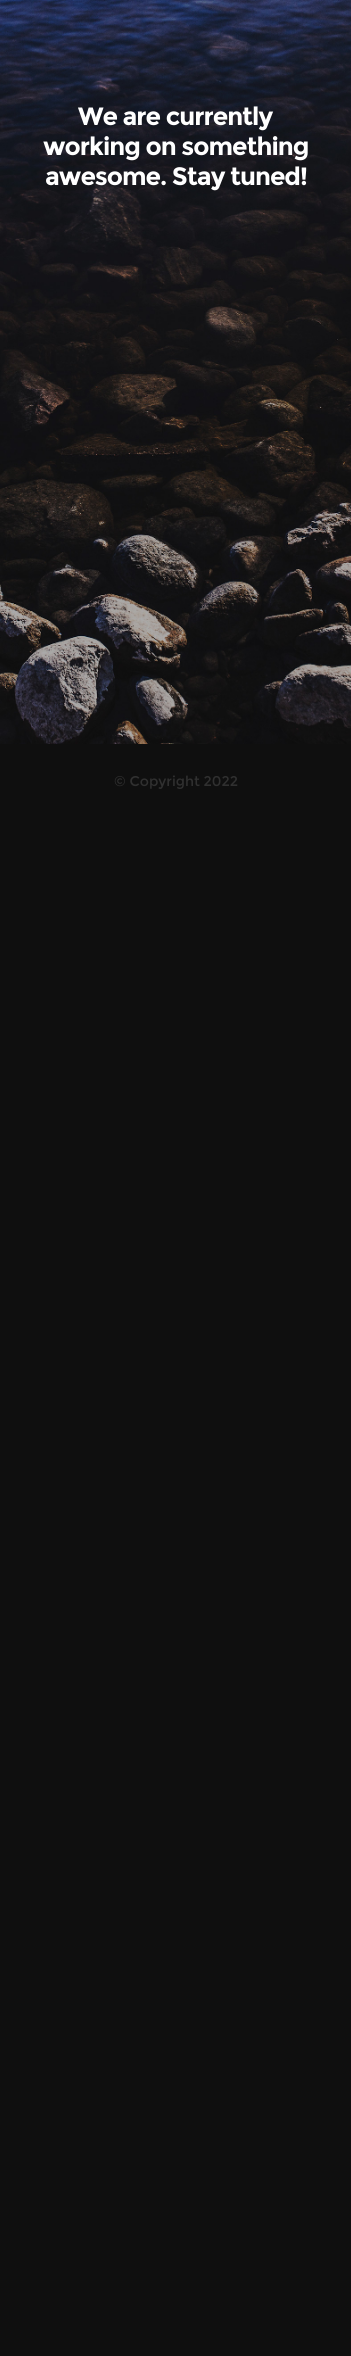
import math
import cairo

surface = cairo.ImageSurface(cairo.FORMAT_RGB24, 351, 2356)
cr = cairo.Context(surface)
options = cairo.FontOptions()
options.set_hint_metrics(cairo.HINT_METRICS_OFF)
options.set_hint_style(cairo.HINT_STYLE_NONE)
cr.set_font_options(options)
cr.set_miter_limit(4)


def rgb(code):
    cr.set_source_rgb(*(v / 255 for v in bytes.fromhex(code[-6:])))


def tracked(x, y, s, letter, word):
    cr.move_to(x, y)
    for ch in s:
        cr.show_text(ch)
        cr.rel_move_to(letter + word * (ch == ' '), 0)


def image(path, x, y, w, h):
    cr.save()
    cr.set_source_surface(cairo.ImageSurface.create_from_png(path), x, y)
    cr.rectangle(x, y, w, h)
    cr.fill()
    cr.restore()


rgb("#0f0f0f")
cr.paint()
image("img/1.png", 0, 0, 351, 744)
cr.select_font_face("Montserrat", cairo.FONT_SLANT_NORMAL, cairo.FONT_WEIGHT_BOLD)
cr.set_font_size(25)
rgb("#ffffff")
for x, y, s in [
    (78, 125, "We are currently"),
    (43, 155, "working on something"),
    (45, 185, "awesome. Stay tuned!"),
]:
    tracked(x, y, s, -1, 0)
cr.select_font_face("Montserrat")
cr.set_font_size(14)
rgb("#303030")
cr.move_to(114, 786)
cr.show_text("© Copyright 2022")
surface.write_to_png("page.png")
